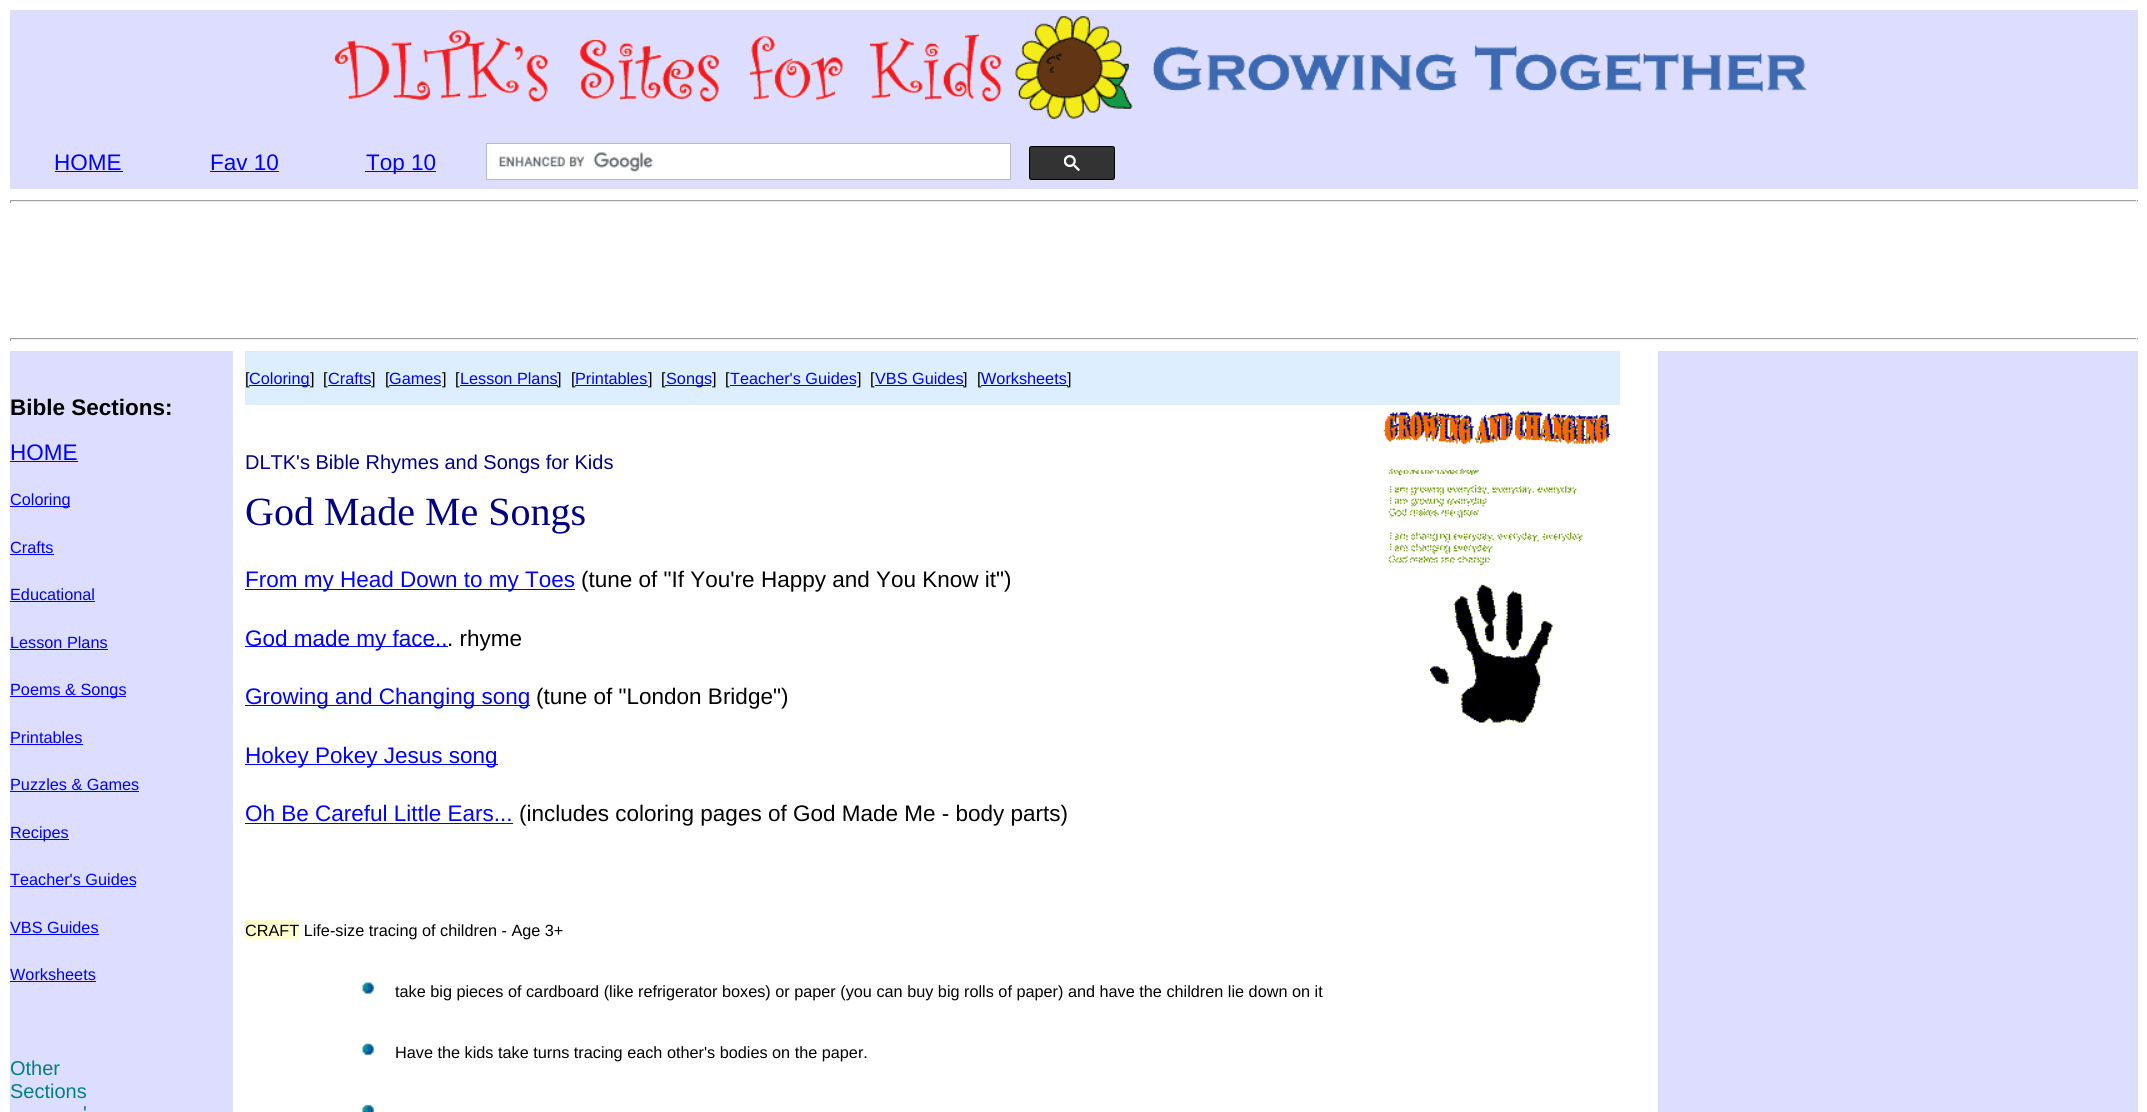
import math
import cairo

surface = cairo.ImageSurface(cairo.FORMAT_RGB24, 2147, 1112)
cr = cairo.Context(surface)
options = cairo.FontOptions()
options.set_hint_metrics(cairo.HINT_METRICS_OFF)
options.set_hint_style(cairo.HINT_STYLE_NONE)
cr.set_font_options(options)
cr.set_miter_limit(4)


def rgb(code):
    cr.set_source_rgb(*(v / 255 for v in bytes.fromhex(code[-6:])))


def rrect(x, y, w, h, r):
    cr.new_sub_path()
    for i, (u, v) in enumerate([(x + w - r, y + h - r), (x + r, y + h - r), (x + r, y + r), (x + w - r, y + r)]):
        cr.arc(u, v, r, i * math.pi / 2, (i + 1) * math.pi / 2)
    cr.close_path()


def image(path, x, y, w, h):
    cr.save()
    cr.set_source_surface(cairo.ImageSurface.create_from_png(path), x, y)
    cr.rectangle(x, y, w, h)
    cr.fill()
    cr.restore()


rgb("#ffffff")
cr.paint()
rgb("#ddddff")
cr.rectangle(10, 10, 2128, 179)
cr.fill()
image("img/1.png", 334, 16, 1474, 103)
for x, y, w, h, color in [
    (55, 171, 68, 1, "#0000ff"),
    (210, 171, 69, 1, "#0000ff"),
    (365, 171, 71, 1, "#0000ff"),
]:
    rgb(color)
    cr.rectangle(x, y, w, h)
    cr.fill()
rgb("#ffffff")
cr.rectangle(486.5, 143.5, 524, 36)
cr.fill_preserve()
rgb("#bbbbbb")
cr.set_line_width(1)
cr.stroke()
image("img/2.png", 498, 152, 155, 20)
rgb("#333333")
rrect(1029.5, 146.5, 85, 33, 2)
cr.fill_preserve()
rgb("#000000")
cr.stroke()
image("img/3.png", 1064, 155, 16, 16)
for x, y, w, h, color in [
    (10, 200, 2128, 1, "#9f9f9f"),
    (2136, 200, 1, 3, "#eeeeee"),
    (10, 201, 2128, 1, "#eeeeee"),
    (10, 200, 1, 3, "#9f9f9f"),
    (10, 338, 2128, 1, "#9f9f9f"),
    (2136, 338, 1, 3, "#eeeeee"),
    (10, 339, 2128, 1, "#eeeeee"),
    (10, 338, 1, 3, "#9f9f9f"),
    (10, 351, 223, 761, "#ddddff"),
    (10, 461, 68, 1, "#0000ff"),
    (10, 506, 60, 1, "#0000ff"),
    (10, 554, 44, 1, "#0000ff"),
    (10, 601, 85, 1, "#0000ff"),
    (10, 649, 98, 1, "#0000ff"),
    (10, 696, 116, 1, "#0000ff"),
    (10, 744, 73, 1, "#0000ff"),
    (10, 791, 129, 1, "#0000ff"),
    (10, 839, 59, 1, "#0000ff"),
    (10, 886, 126, 1, "#0000ff"),
    (10, 934, 89, 1, "#0000ff"),
    (10, 981, 86, 1, "#0000ff"),
    (245, 351, 1375, 54, "#ddeeff"),
    (328, 385, 43, 1, "#0000ff"),
    (460, 385, 98, 1, "#0000ff"),
    (730, 385, 126, 1, "#0000ff"),
    (875, 385, 89, 1, "#0000ff"),
]:
    rgb(color)
    cr.rectangle(x, y, w, h)
    cr.fill()
image("img/4.png", 1383, 411, 228, 312)
for x, y, w, h, color in [
    (245, 589, 330, 1, "#0000ff"),
    (245, 646, 203, 1, "#0000ff"),
    (245, 705, 285, 1, "#0000ff"),
    (245, 764, 253, 1, "#0000ff"),
    (245, 823, 268, 1, "#0000ff"),
    (245, 920, 54, 19, "#ffffcc"),
]:
    rgb(color)
    cr.rectangle(x, y, w, h)
    cr.fill()
image("img/5.png", 362, 982, 12, 12)
image("img/6.png", 362, 1043, 12, 13)
image("img/7.png", 362, 1104, 12, 8)
rgb("#ddddff")
cr.rectangle(1658, 351, 480, 761)
cr.fill()
cr.select_font_face("Liberation Sans")
cr.set_font_size(22.5)
rgb("#0000ff")
cr.move_to(54, 170)
cr.show_text("HOME")
cr.move_to(210, 170)
cr.show_text("Fav 10")
cr.save()
cr.rectangle(323, 126, 156, 48)
cr.clip()
cr.move_to(366, 170)
cr.show_text("Top 10")
cr.restore()
cr.select_font_face("Liberation Sans", cairo.FONT_SLANT_NORMAL, cairo.FONT_WEIGHT_BOLD)
rgb("#000000")
cr.move_to(10, 415)
cr.show_text("Bible Sections:")
cr.select_font_face("Liberation Sans")
rgb("#0000ff")
cr.move_to(10, 460)
cr.show_text("HOME")
cr.set_font_size(16.25)
for x, y, s in [
    (10, 505, "Coloring"),
    (10, 553, "Crafts"),
    (10, 600, "Educational"),
    (10, 648, "Lesson Plans"),
    (10, 695, "Poems & Songs"),
    (10, 743, "Printables"),
    (10, 790, "Puzzles & Games"),
    (10, 838, "Recipes"),
    (10, 885, "Teacher's Guides"),
    (10, 933, "VBS Guides"),
    (10, 980, "Worksheets"),
]:
    cr.move_to(x, y)
    cr.show_text(s)
cr.set_font_size(20)
rgb("#008080")
for x, y, s in [
    (10, 1075, "Other"),
    (10, 1098, "Sections"),
    (83, 1120, "'"),
]:
    cr.move_to(x, y)
    cr.show_text(s)
cr.set_font_size(16.25)
rgb("#000000")
cr.move_to(245, 384)
cr.show_text("[")
rgb("#0000ff")
cr.rectangle(249, 385, 61, 1)
cr.fill()
cr.move_to(249, 384)
cr.show_text("Coloring")
rgb("#000000")
cr.move_to(310, 384)
cr.show_text("]")
cr.move_to(323, 384)
cr.show_text("[")
rgb("#0000ff")
cr.move_to(328, 384)
cr.show_text("Crafts")
rgb("#000000")
cr.move_to(371, 384)
cr.show_text("]")
cr.move_to(385, 384)
cr.show_text("[")
rgb("#0000ff")
cr.move_to(389, 384)
cr.show_text("Games")
cr.rectangle(389, 385, 52, 1)
cr.fill()
rgb("#000000")
cr.move_to(442, 384)
cr.show_text("]")
cr.move_to(455, 384)
cr.show_text("[")
rgb("#0000ff")
cr.move_to(460, 384)
cr.show_text("Lesson Plans")
rgb("#000000")
cr.move_to(557, 384)
cr.show_text("]")
cr.move_to(571, 384)
cr.show_text("[")
rgb("#0000ff")
cr.move_to(575, 384)
cr.show_text("Printables")
cr.rectangle(575, 385, 73, 1)
cr.fill()
rgb("#000000")
cr.move_to(648, 384)
cr.show_text("]")
cr.move_to(661, 384)
cr.show_text("[")
rgb("#0000ff")
cr.rectangle(665, 385, 46, 1)
cr.fill()
cr.move_to(666, 384)
cr.show_text("Songs")
rgb("#000000")
cr.move_to(712, 384)
cr.show_text("]")
cr.move_to(725, 384)
cr.show_text("[")
rgb("#0000ff")
cr.move_to(730, 384)
cr.show_text("Teacher's Guides")
rgb("#000000")
cr.move_to(857, 384)
cr.show_text("]")
cr.move_to(870, 384)
cr.show_text("[")
rgb("#0000ff")
cr.move_to(875, 384)
cr.show_text("VBS Guides")
rgb("#000000")
cr.move_to(963, 384)
cr.show_text("]")
cr.move_to(977, 384)
cr.show_text("[")
rgb("#0000ff")
cr.move_to(981, 384)
cr.show_text("Worksheets")
cr.rectangle(981, 385, 87, 1)
cr.fill()
rgb("#000000")
cr.move_to(1067, 384)
cr.show_text("]")
cr.set_font_size(20)
rgb("#000080")
cr.move_to(245, 469)
cr.show_text("DLTK's Bible Rhymes and Songs for Kids")
cr.select_font_face("Liberation Serif")
cr.set_font_size(40)
cr.move_to(245, 525)
cr.show_text("God Made Me Songs")
cr.select_font_face("Liberation Sans")
cr.set_font_size(22.5)
rgb("#0000ff")
cr.move_to(245, 587)
cr.show_text("From my Head Down to my Toes")
rgb("#000000")
cr.move_to(581, 587)
cr.show_text("(tune of \"If You're Happy and You Know it\")")
rgb("#0000ff")
cr.move_to(245, 646)
cr.show_text("God made my face..")
rgb("#000000")
cr.move_to(447, 646)
cr.show_text(". rhyme")
rgb("#0000ff")
cr.move_to(245, 704)
cr.show_text("Growing and Changing song")
rgb("#000000")
cr.move_to(536, 704)
cr.show_text("(tune of \"London Bridge\")")
rgb("#0000ff")
cr.move_to(245, 763)
cr.show_text("Hokey Pokey Jesus song")
cr.move_to(245, 821)
cr.show_text("Oh Be Careful Little Ears...")
rgb("#000000")
cr.move_to(519, 821)
cr.show_text("(includes coloring pages of God Made Me - body parts)")
cr.set_font_size(16.25)
for x, y, s in [
    (245, 936, "CRAFT Life-size tracing of children - Age 3+"),
    (395, 997, "take big pieces of cardboard (like refrigerator boxes) or paper (you can buy big rolls of paper) and have the children lie down on it"),
    (395, 1058, "Have the kids take turns tracing each other's bodies on the paper."),
]:
    cr.move_to(x, y)
    cr.show_text(s)
surface.write_to_png("page.png")
